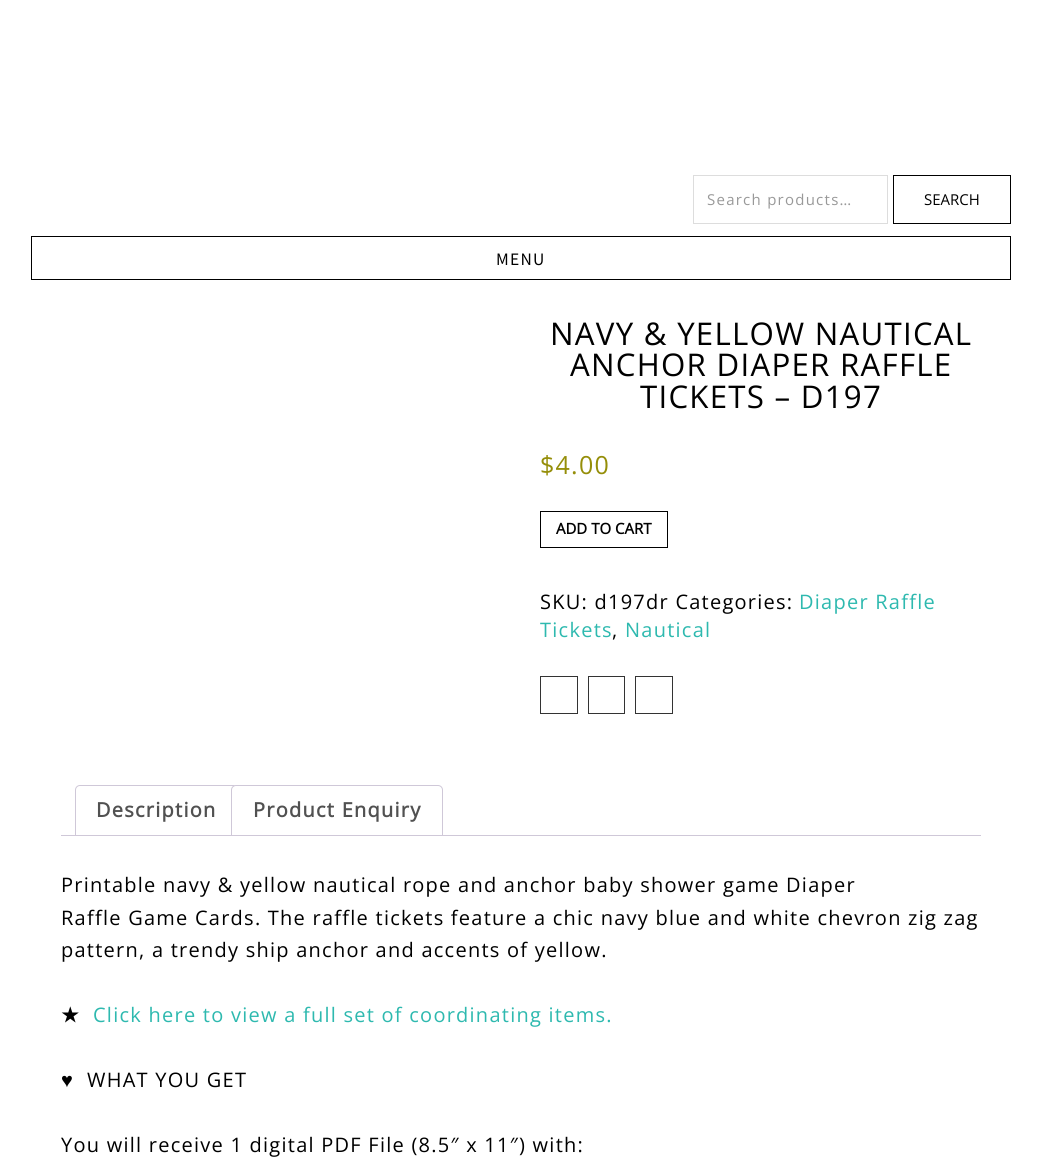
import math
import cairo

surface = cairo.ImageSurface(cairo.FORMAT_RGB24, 1042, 1160)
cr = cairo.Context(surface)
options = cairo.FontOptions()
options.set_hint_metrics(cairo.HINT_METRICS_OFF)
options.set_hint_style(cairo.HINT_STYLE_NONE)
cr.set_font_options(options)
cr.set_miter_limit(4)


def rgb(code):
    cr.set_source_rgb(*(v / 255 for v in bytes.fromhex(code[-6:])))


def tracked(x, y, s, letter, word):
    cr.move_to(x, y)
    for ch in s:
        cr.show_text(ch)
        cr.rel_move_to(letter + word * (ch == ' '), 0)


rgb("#ffffff")
cr.paint()
cr.rectangle(693.5, 175.5, 194, 48)
rgb("#dddddd")
cr.set_line_width(1)
cr.stroke()
cr.rectangle(893.5, 175.5, 117, 48)
rgb("#000000")
cr.stroke()
cr.rectangle(31.5, 236.5, 979, 43)
cr.stroke()
cr.rectangle(540.5, 511.5, 127, 36)
cr.stroke()
cr.rectangle(540.5, 676.5, 37, 37)
rgb("#333333")
cr.stroke()
cr.rectangle(588.5, 676.5, 36, 37)
cr.stroke()
cr.rectangle(635.5, 676.5, 37, 37)
cr.stroke()
cr.new_path()
cr.move_to(80, 785.5)
cr.line_to(233, 785.5)
cr.curve_to(235.5, 785.5, 237.5, 787.5, 237.5, 790)
cr.line_to(237.5, 835.5)
cr.line_to(75.5, 835.5)
cr.line_to(75.5, 790)
cr.curve_to(75.5, 787.5, 77.5, 785.5, 80, 785.5)
cr.close_path()
rgb("#cfc8d8")
cr.stroke()
rgb("#ffffff")
cr.new_path()
cr.move_to(236, 785.5)
cr.line_to(438, 785.5)
cr.curve_to(440.5, 785.5, 442.5, 787.5, 442.5, 790)
cr.line_to(442.5, 835.5)
cr.line_to(231.5, 835.5)
cr.line_to(231.5, 790)
cr.curve_to(231.5, 787.5, 233.5, 785.5, 236, 785.5)
cr.close_path()
cr.fill_preserve()
rgb("#cfc8d8")
cr.stroke()
cr.rectangle(61, 835, 920, 1)
cr.fill()
cr.select_font_face("Open Sans")
cr.set_font_size(15)
rgb("#999999")
tracked(707, 205, "Search products…", 1.25, 0)
rgb("#000000")
cr.move_to(924, 205)
cr.show_text("SEARCH")
cr.select_font_face("Source Sans Pro")
cr.set_font_size(17.5)
tracked(496, 265, "MENU", 1.25, 0)
cr.select_font_face("Open Sans")
cr.set_font_size(31.25)
for x, y, s in [
    (550, 345, "NAVY & YELLOW NAUTICAL"),
    (570, 376, "ANCHOR DIAPER RAFFLE"),
    (640, 408, "TICKETS – D197"),
]:
    tracked(x, y, s, 1.25, 0)
cr.set_font_size(25)
rgb("#958e09")
tracked(540, 474, "$4.00", 1.25, 0)
cr.select_font_face("Open Sans", cairo.FONT_SLANT_NORMAL, cairo.FONT_WEIGHT_BOLD)
cr.set_font_size(15)
rgb("#000000")
cr.move_to(556, 534)
cr.show_text("ADD TO CART")
cr.select_font_face("Open Sans")
cr.set_font_size(20)
tracked(540, 609, "SKU: d197dr Categories:", 1.25, 0)
rgb("#2eb9af")
tracked(799, 609, "Diaper Raffle", 1.25, 0)
tracked(540, 637, "Tickets", 1.25, 0)
rgb("#000000")
tracked(612, 637, ",", 1.25, 0)
rgb("#2eb9af")
tracked(625, 637, "Nautical", 1.25, 0)
cr.select_font_face("Open Sans", cairo.FONT_SLANT_NORMAL, cairo.FONT_WEIGHT_BOLD)
rgb("#515151")
tracked(96, 817, "Description", 1.25, 0)
tracked(253, 817, "Product Enquiry", 1.25, 0)
cr.select_font_face("Open Sans")
rgb("#000000")
for x, y, s in [
    (61, 892, "Printable navy & yellow nautical rope and anchor baby shower game Diaper"),
    (61, 925, "Raffle Game Cards. The raffle tickets feature a chic navy blue and white chevron zig zag"),
    (61, 957, "pattern, a trendy ship anchor and accents of yellow."),
]:
    tracked(x, y, s, 1.25, 0)
cr.select_font_face("DejaVu Sans", cairo.FONT_SLANT_NORMAL, cairo.FONT_WEIGHT_BOLD)
tracked(61, 1022, "★", 1.25, 0)
cr.select_font_face("Open Sans")
rgb("#2eb9af")
tracked(93, 1022, "Click here to view a full set of coordinating items.", 1.25, 0)
cr.select_font_face("Liberation Serif")
rgb("#000000")
tracked(61, 1087, "♥", 1.25, 0)
cr.select_font_face("Open Sans")
tracked(87, 1087, "WHAT YOU GET", 1.25, 0)
tracked(61, 1152, "You will receive 1 digital PDF File (8.5″ x 11″) with:", 1.25, 0)
surface.write_to_png("page.png")
